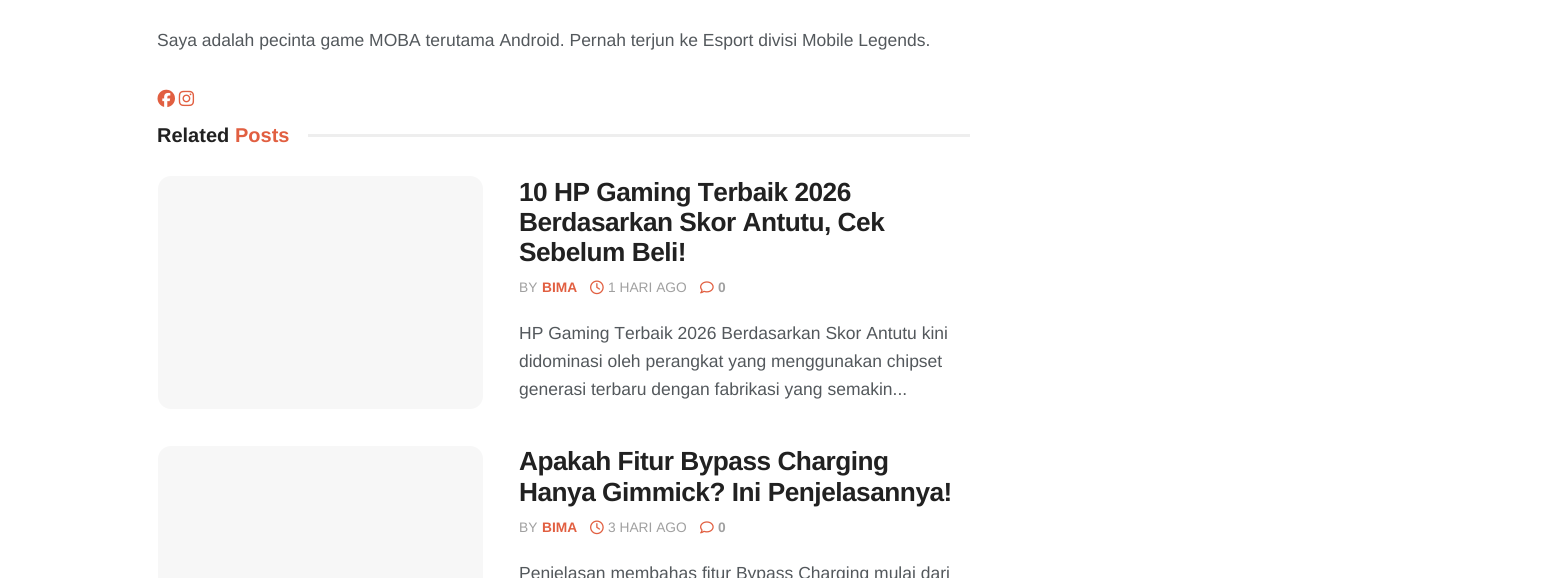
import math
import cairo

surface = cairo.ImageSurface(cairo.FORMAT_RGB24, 1551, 578)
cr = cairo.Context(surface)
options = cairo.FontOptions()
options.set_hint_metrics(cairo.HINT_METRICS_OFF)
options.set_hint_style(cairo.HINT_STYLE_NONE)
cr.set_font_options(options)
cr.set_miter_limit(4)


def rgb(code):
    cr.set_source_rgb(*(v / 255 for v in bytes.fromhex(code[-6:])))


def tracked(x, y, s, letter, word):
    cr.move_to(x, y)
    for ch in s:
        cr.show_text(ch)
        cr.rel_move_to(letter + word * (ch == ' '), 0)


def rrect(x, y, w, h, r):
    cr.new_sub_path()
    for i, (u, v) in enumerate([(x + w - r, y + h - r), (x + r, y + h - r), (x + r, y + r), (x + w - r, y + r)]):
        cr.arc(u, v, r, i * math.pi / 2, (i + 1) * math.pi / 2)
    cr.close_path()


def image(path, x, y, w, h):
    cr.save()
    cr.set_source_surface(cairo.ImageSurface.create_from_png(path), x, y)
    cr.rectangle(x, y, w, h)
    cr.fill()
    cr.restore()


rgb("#ffffff")
cr.paint()
image("img/1.png", 157, 89, 18, 19)
image("img/2.png", 178, 90, 17, 17)
rgb("#eeeeee")
cr.rectangle(308, 134, 662, 3)
cr.fill()
rgb("#f7f7f7")
rrect(158, 176, 325, 233, 13)
cr.fill()
image("img/3.png", 590, 280, 14, 15)
image("img/4.png", 700, 281, 14, 13)
rrect(158, 446, 325, 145, 13)
cr.fill()
image("img/3.png", 590, 520, 14, 15)
image("img/4.png", 700, 521, 14, 13)
cr.select_font_face("Liberation Sans")
cr.set_font_size(17.5)
rgb("#53585c")
cr.move_to(157, 46)
cr.show_text("Saya adalah pecinta game MOBA terutama Android. Pernah terjun ke Esport divisi Mobile Legends.")
cr.select_font_face("Liberation Sans", cairo.FONT_SLANT_NORMAL, cairo.FONT_WEIGHT_BOLD)
cr.set_font_size(20)
rgb("#212121")
cr.move_to(157, 142)
cr.show_text("Related")
rgb("#e15f41")
cr.move_to(235, 142)
cr.show_text("Posts")
cr.set_font_size(26.25)
rgb("#212121")
for x, y, s in [
    (519, 201, "10 HP Gaming Terbaik 2026"),
    (519, 231, "Berdasarkan Skor Antutu, Cek"),
    (519, 261, "Sebelum Beli!"),
]:
    tracked(x, y, s, -0.5, 0)
cr.select_font_face("Liberation Sans")
cr.set_font_size(13.75)
rgb("#a0a0a0")
cr.move_to(519, 292)
cr.show_text("BY")
cr.select_font_face("Liberation Sans", cairo.FONT_SLANT_NORMAL, cairo.FONT_WEIGHT_BOLD)
rgb("#e15f41")
cr.move_to(542, 292)
cr.show_text("BIMA")
cr.select_font_face("Liberation Sans")
rgb("#a0a0a0")
cr.move_to(608, 292)
cr.show_text("1 HARI AGO")
cr.select_font_face("Liberation Sans", cairo.FONT_SLANT_NORMAL, cairo.FONT_WEIGHT_BOLD)
cr.move_to(718, 292)
cr.show_text("0")
cr.select_font_face("Liberation Sans")
cr.set_font_size(17.5)
rgb("#53585c")
for x, y, s in [
    (519, 339, "HP Gaming Terbaik 2026 Berdasarkan Skor Antutu kini"),
    (519, 367, "didominasi oleh perangkat yang menggunakan chipset"),
    (519, 395, "generasi terbaru dengan fabrikasi yang semakin..."),
]:
    cr.move_to(x, y)
    cr.show_text(s)
cr.select_font_face("Liberation Sans", cairo.FONT_SLANT_NORMAL, cairo.FONT_WEIGHT_BOLD)
cr.set_font_size(26.25)
rgb("#212121")
tracked(519, 470, "Apakah Fitur Bypass Charging", -0.5, 0)
tracked(519, 501, "Hanya Gimmick? Ini Penjelasannya!", -0.5, 0)
cr.select_font_face("Liberation Sans")
cr.set_font_size(13.75)
rgb("#a0a0a0")
cr.move_to(519, 532)
cr.show_text("BY")
cr.select_font_face("Liberation Sans", cairo.FONT_SLANT_NORMAL, cairo.FONT_WEIGHT_BOLD)
rgb("#e15f41")
cr.move_to(542, 532)
cr.show_text("BIMA")
cr.select_font_face("Liberation Sans")
rgb("#a0a0a0")
cr.move_to(608, 532)
cr.show_text("3 HARI AGO")
cr.select_font_face("Liberation Sans", cairo.FONT_SLANT_NORMAL, cairo.FONT_WEIGHT_BOLD)
cr.move_to(718, 532)
cr.show_text("0")
cr.select_font_face("Liberation Sans")
cr.set_font_size(17.5)
rgb("#53585c")
cr.move_to(519, 579)
cr.show_text("Penjelasan membahas fitur Bypass Charging mulai dari")
surface.write_to_png("page.png")
